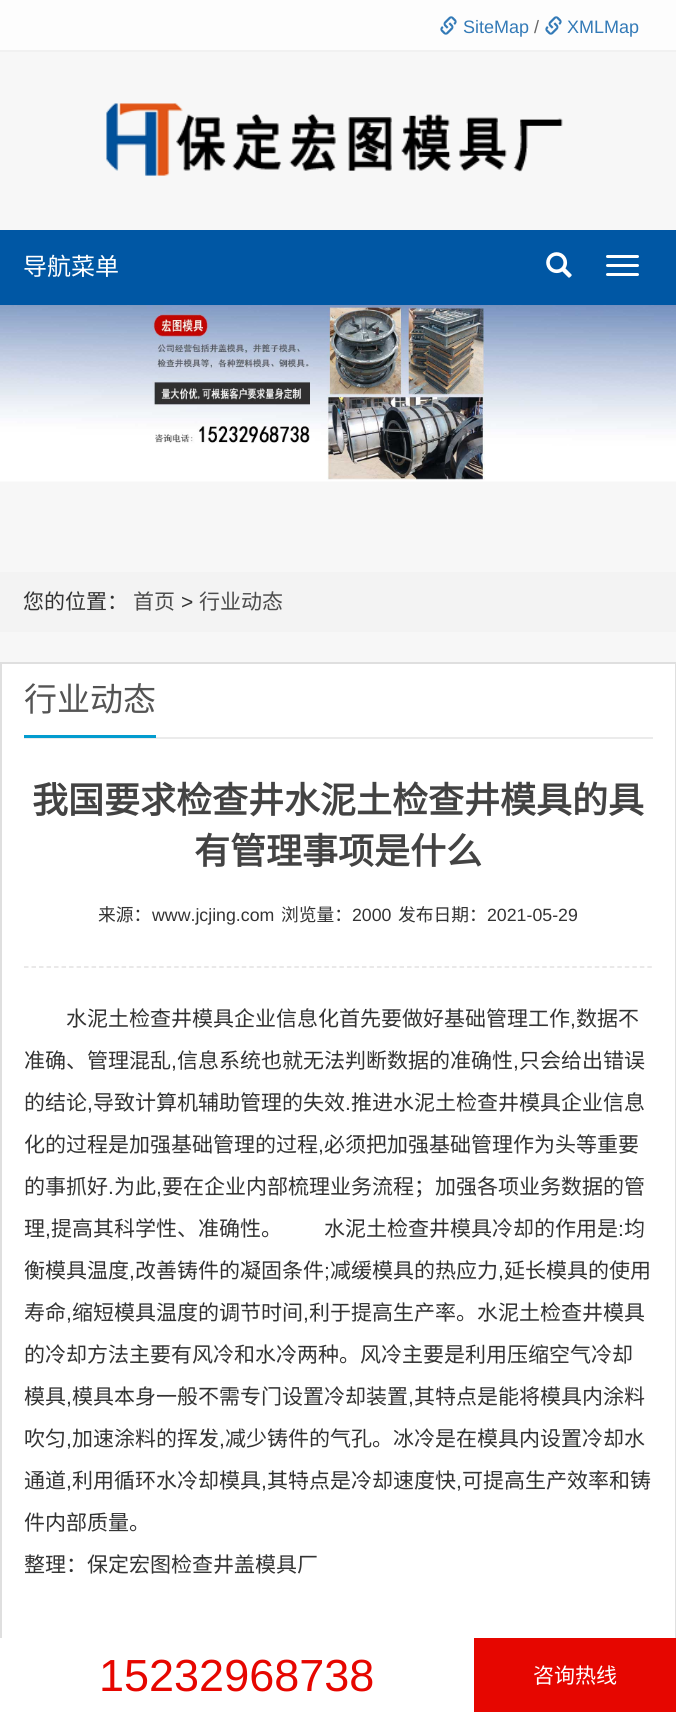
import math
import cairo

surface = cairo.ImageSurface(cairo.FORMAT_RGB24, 676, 1712)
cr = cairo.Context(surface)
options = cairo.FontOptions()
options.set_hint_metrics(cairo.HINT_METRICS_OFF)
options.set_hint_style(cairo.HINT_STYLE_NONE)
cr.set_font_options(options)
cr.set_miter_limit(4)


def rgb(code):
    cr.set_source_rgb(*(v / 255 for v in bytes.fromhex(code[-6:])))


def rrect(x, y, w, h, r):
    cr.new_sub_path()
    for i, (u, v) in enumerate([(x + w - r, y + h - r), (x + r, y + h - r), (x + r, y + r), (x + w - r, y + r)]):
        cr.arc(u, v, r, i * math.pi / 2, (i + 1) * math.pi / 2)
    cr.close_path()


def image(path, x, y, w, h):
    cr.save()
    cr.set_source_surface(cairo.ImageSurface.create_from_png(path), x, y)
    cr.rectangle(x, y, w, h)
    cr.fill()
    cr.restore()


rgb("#f7f7f7")
cr.paint()
rgb("#fdfdfd")
cr.rectangle(0, 0, 676, 50)
cr.fill()
rgb("#f1f1f1")
cr.rectangle(0, 50, 676, 2)
cr.fill()
image("img/1.png", 440, 16, 17, 19)
image("img/1.png", 545, 16, 17, 19)
image("img/2.png", 106, 103, 457, 73)
rgb("#0057a4")
cr.rectangle(0, 230, 676, 75)
cr.fill()
image("img/3.png", 546, 252, 26, 26)
rgb("#ffffff")
rrect(606, 255, 33, 3, 1.5)
cr.fill()
rrect(606, 264, 33, 3, 1.5)
cr.fill()
rrect(606, 273, 33, 3, 1.5)
cr.fill()
image("img/4.png", 0, 305, 676, 177)
rgb("#f3f3f3")
cr.rectangle(0, 572, 676, 60)
cr.fill()
rgb("#ffffff")
cr.rectangle(2, 664, 673, 974)
cr.fill()
cr.rectangle(1, 663, 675, 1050)
rgb("#dfdfdf")
cr.stroke()
rgb("#ebebeb")
cr.rectangle(24, 737, 629, 2)
cr.fill()
rgb("#039ccf")
cr.rectangle(24, 735, 132, 3)
cr.fill()
cr.new_path()
cr.move_to(24, 967)
cr.line_to(652.5, 967)
rgb("#e3e2e2")
cr.set_line_width(1.5)
cr.set_dash([4.5, 3.01])
cr.stroke()
rgb("#ffffff")
cr.rectangle(0, 1638, 474, 74)
cr.fill()
rgb("#e60600")
cr.rectangle(474, 1638, 202, 74)
cr.fill()
cr.select_font_face("Liberation Sans")
cr.set_font_size(18)
rgb("#337ab7")
cr.move_to(463, 33)
cr.show_text("SiteMap")
rgb("#666666")
cr.move_to(534, 33)
cr.show_text("/")
rgb("#337ab7")
cr.move_to(567, 33)
cr.show_text("XMLMap")
cr.select_font_face("Noto Sans CJK SC")
cr.set_font_size(24)
rgb("#ffffff")
cr.move_to(23, 275)
cr.show_text("导航菜单")
cr.set_font_size(21)
rgb("#333333")
cr.move_to(23, 609)
cr.show_text("您的位置：")
rgb("#4c4c4c")
cr.move_to(133, 609)
cr.show_text("首页")
cr.select_font_face("Liberation Sans")
rgb("#333333")
cr.move_to(181, 609)
cr.show_text(">")
cr.select_font_face("Noto Sans CJK SC")
rgb("#4c4c4c")
cr.move_to(199, 609)
cr.show_text("行业动态")
cr.set_font_size(33)
rgb("#545454")
cr.move_to(24, 711)
cr.show_text("行业动态")
cr.select_font_face("Noto Sans CJK SC", cairo.FONT_SLANT_NORMAL, cairo.FONT_WEIGHT_BOLD)
cr.set_font_size(36)
rgb("#434343")
cr.move_to(32, 813)
cr.show_text("我国要求检查井水泥土检查井模具的具")
cr.move_to(194, 864)
cr.show_text("有管理事项是什么")
cr.select_font_face("Noto Sans CJK SC")
cr.set_font_size(17.75)
rgb("#333333")
cr.move_to(98, 921)
cr.show_text("来源：")
cr.select_font_face("Liberation Sans")
cr.move_to(152, 921)
cr.show_text("www.jcjing.com")
cr.select_font_face("Noto Sans CJK SC")
cr.move_to(281, 921)
cr.show_text("浏览量：")
cr.select_font_face("Liberation Sans")
cr.move_to(352, 921)
cr.show_text("2000")
cr.select_font_face("Noto Sans CJK SC")
cr.move_to(398, 921)
cr.show_text("发布日期：")
cr.select_font_face("Liberation Sans")
cr.move_to(487, 921)
cr.show_text("2021-05-29")
cr.select_font_face("Noto Sans CJK SC")
cr.set_font_size(21)
cr.move_to(66, 1026)
cr.show_text("水泥土检查井模具企业信息化首先要做好基础管理工作")
cr.select_font_face("Liberation Sans")
cr.move_to(570, 1026)
cr.show_text(",")
cr.select_font_face("Noto Sans CJK SC")
cr.move_to(576, 1026)
cr.show_text("数据不")
cr.move_to(24, 1068)
cr.show_text("准确、管理混乱")
cr.select_font_face("Liberation Sans")
cr.move_to(171, 1068)
cr.show_text(",")
cr.select_font_face("Noto Sans CJK SC")
cr.move_to(177, 1068)
cr.show_text("信息系统也就无法判断数据的准确性")
cr.select_font_face("Liberation Sans")
cr.move_to(513, 1068)
cr.show_text(",")
cr.select_font_face("Noto Sans CJK SC")
cr.move_to(519, 1068)
cr.show_text("只会给出错误")
cr.move_to(24, 1110)
cr.show_text("的结论")
cr.select_font_face("Liberation Sans")
cr.move_to(87, 1110)
cr.show_text(",")
cr.select_font_face("Noto Sans CJK SC")
cr.move_to(93, 1110)
cr.show_text("导致计算机辅助管理的失效")
cr.select_font_face("Liberation Sans")
cr.move_to(345, 1110)
cr.show_text(".")
cr.select_font_face("Noto Sans CJK SC")
cr.move_to(351, 1110)
cr.show_text("推进水泥土检查井模具企业信息")
cr.move_to(24, 1152)
cr.show_text("化的过程是加强基础管理的过程")
cr.select_font_face("Liberation Sans")
cr.move_to(318, 1152)
cr.show_text(",")
cr.select_font_face("Noto Sans CJK SC")
cr.move_to(324, 1152)
cr.show_text("必须把加强基础管理作为头等重要")
cr.move_to(24, 1194)
cr.show_text("的事抓好")
cr.select_font_face("Liberation Sans")
cr.move_to(108, 1194)
cr.show_text(".")
cr.select_font_face("Noto Sans CJK SC")
cr.move_to(114, 1194)
cr.show_text("为此")
cr.select_font_face("Liberation Sans")
cr.move_to(156, 1194)
cr.show_text(",")
cr.select_font_face("Noto Sans CJK SC")
cr.move_to(162, 1194)
cr.show_text("要在企业内部梳理业务流程；加强各项业务数据的管")
cr.move_to(24, 1236)
cr.show_text("理")
cr.select_font_face("Liberation Sans")
cr.move_to(45, 1236)
cr.show_text(",")
cr.select_font_face("Noto Sans CJK SC")
cr.move_to(51, 1236)
cr.show_text("提高其科学性、准确性。　　水泥土检查井模具冷却的作用是")
cr.select_font_face("Liberation Sans")
cr.move_to(618, 1236)
cr.show_text(":")
cr.select_font_face("Noto Sans CJK SC")
cr.move_to(624, 1236)
cr.show_text("均")
cr.move_to(24, 1278)
cr.show_text("衡模具温度")
cr.select_font_face("Liberation Sans")
cr.move_to(129, 1278)
cr.show_text(",")
cr.select_font_face("Noto Sans CJK SC")
cr.move_to(135, 1278)
cr.show_text("改善铸件的凝固条件")
cr.select_font_face("Liberation Sans")
cr.move_to(324, 1278)
cr.show_text(";")
cr.select_font_face("Noto Sans CJK SC")
cr.move_to(330, 1278)
cr.show_text("减缓模具的热应力")
cr.select_font_face("Liberation Sans")
cr.move_to(498, 1278)
cr.show_text(",")
cr.select_font_face("Noto Sans CJK SC")
cr.move_to(504, 1278)
cr.show_text("延长模具的使用")
cr.move_to(24, 1320)
cr.show_text("寿命")
cr.select_font_face("Liberation Sans")
cr.move_to(66, 1320)
cr.show_text(",")
cr.select_font_face("Noto Sans CJK SC")
cr.move_to(72, 1320)
cr.show_text("缩短模具温度的调节时间")
cr.select_font_face("Liberation Sans")
cr.move_to(303, 1320)
cr.show_text(",")
cr.select_font_face("Noto Sans CJK SC")
for x, y, s in [
    (309, 1320, "利于提高生产率。水泥土检查井模具"),
    (24, 1362, "的冷却方法主要有风冷和水冷两种。风冷主要是利用压缩空气冷却"),
    (24, 1404, "模具"),
]:
    cr.move_to(x, y)
    cr.show_text(s)
cr.select_font_face("Liberation Sans")
cr.move_to(66, 1404)
cr.show_text(",")
cr.select_font_face("Noto Sans CJK SC")
cr.move_to(72, 1404)
cr.show_text("模具本身一般不需专门设置冷却装置")
cr.select_font_face("Liberation Sans")
cr.move_to(408, 1404)
cr.show_text(",")
cr.select_font_face("Noto Sans CJK SC")
cr.move_to(414, 1404)
cr.show_text("其特点是能将模具内涂料")
cr.move_to(24, 1446)
cr.show_text("吹匀")
cr.select_font_face("Liberation Sans")
cr.move_to(66, 1446)
cr.show_text(",")
cr.select_font_face("Noto Sans CJK SC")
cr.move_to(72, 1446)
cr.show_text("加速涂料的挥发")
cr.select_font_face("Liberation Sans")
cr.move_to(219, 1446)
cr.show_text(",")
cr.select_font_face("Noto Sans CJK SC")
cr.move_to(225, 1446)
cr.show_text("减少铸件的气孔。冰冷是在模具内设置冷却水")
cr.move_to(24, 1488)
cr.show_text("通道")
cr.select_font_face("Liberation Sans")
cr.move_to(66, 1488)
cr.show_text(",")
cr.select_font_face("Noto Sans CJK SC")
cr.move_to(72, 1488)
cr.show_text("利用循环水冷却模具")
cr.select_font_face("Liberation Sans")
cr.move_to(261, 1488)
cr.show_text(",")
cr.select_font_face("Noto Sans CJK SC")
cr.move_to(267, 1488)
cr.show_text("其特点是冷却速度快")
cr.select_font_face("Liberation Sans")
cr.move_to(456, 1488)
cr.show_text(",")
cr.select_font_face("Noto Sans CJK SC")
for x, y, s in [
    (462, 1488, "可提高生产效率和铸"),
    (24, 1530, "件内部质量。"),
    (24, 1572, "整理：保定宏图检查井盖模具厂"),
]:
    cr.move_to(x, y)
    cr.show_text(s)
cr.select_font_face("Liberation Sans")
cr.set_font_size(45)
rgb("#e60600")
cr.move_to(99, 1691)
cr.show_text("15232968738")
cr.select_font_face("Noto Sans CJK SC")
cr.set_font_size(21)
rgb("#ffffff")
cr.move_to(533, 1683)
cr.show_text("咨询热线")
surface.write_to_png("page.png")
